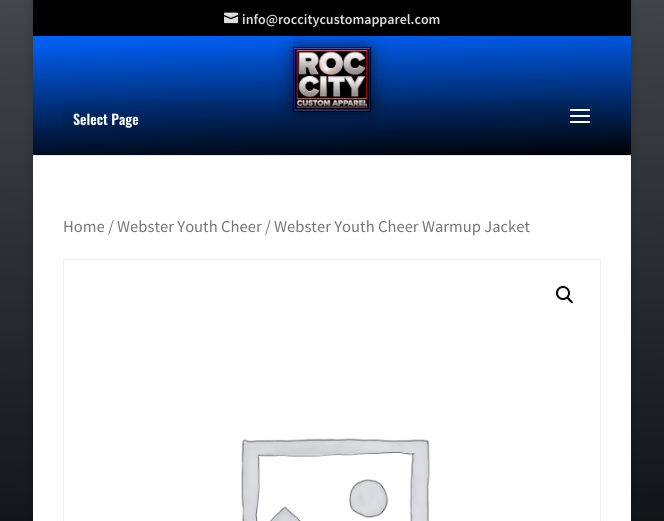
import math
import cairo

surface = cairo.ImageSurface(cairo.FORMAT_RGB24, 664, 521)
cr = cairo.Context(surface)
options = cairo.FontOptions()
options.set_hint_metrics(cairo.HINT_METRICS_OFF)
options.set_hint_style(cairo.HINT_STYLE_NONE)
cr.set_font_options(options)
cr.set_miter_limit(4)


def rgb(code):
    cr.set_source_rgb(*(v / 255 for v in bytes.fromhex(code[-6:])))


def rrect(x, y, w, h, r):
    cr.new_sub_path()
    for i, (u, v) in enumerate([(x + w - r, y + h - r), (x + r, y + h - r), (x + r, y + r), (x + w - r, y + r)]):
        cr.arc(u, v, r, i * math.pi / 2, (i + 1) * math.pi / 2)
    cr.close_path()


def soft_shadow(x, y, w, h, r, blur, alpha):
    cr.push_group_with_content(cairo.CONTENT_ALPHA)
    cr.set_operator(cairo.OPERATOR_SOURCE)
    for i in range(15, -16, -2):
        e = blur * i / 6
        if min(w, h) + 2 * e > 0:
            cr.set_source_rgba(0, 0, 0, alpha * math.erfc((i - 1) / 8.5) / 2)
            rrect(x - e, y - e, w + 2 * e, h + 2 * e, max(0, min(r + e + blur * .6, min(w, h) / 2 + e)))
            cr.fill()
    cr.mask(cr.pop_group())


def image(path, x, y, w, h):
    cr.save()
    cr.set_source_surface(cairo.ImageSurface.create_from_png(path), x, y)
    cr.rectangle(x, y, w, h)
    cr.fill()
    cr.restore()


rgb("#ffffff")
cr.paint()
gradient = cairo.LinearGradient(323, -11, 341, 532)
gradient.add_color_stop_rgba(0, 0.259, 0.275, 0.302, 1)
gradient.add_color_stop_rgba(1, 0.071, 0.078, 0.086, 1)
cr.set_source(gradient)
cr.rectangle(0, 0, 664, 521)
cr.fill()
rgb("#000000")
soft_shadow(33, 0, 598, 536, 0, 5, 0.2)
rgb("#000000")
cr.rectangle(33, 0, 598, 36)
cr.fill()
image("img/1.png", 224, 12, 14, 12)
rgb("#e6e6e6")
cr.rectangle(33, 155, 598, 1)
cr.fill()
gradient = cairo.LinearGradient(330, 26, 334, 165)
gradient.add_color_stop_rgba(0, 0, 0.392, 1, 1)
gradient.add_color_stop_rgba(1, 0, 0, 0, 1)
cr.set_source(gradient)
cr.rectangle(33, 36, 598, 119)
cr.fill()
rgb("#000000")
soft_shadow(298, 52, 68, 55, 0, 10, 1)
image("img/3.png", 293, 47, 78, 65)
cr.set_source_rgba(0, 0, 0, 0.05)
cr.rectangle(63, 99, 538, 36)
cr.fill()
image("img/2.png", 570, 109, 20, 14)
rgb("#ffffff")
cr.rectangle(33, 156, 598, 365)
cr.fill()
cr.rectangle(63.5, 259.5, 537, 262)
rgb("#f2f2f2")
cr.set_line_width(1)
cr.stroke()
image("img/4.png", 241, 438, 189, 83)
cr.arc(563, 293, 6, 0, 2 * math.pi)
rgb("#000000")
cr.set_line_width(2)
cr.stroke()
cr.new_path()
cr.move_to(567, 297.5)
cr.curve_to(568.5, 296, 570, 299, 570.5, 299.5)
cr.curve_to(571, 300, 574, 302, 572.5, 303)
cr.curve_to(571.5, 304, 570, 301.5, 569, 301)
cr.curve_to(568.5, 300, 566, 298.5, 567, 297.5)
cr.close_path()
cr.fill()
cr.select_font_face("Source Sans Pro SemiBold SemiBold")
cr.set_font_size(14)
rgb("#dddddd")
cr.move_to(242, 24)
cr.show_text("info@roccitycustomapparel.com")
cr.select_font_face("Oswald SemiBold")
rgb("#ffffff")
cr.move_to(73, 125)
cr.show_text("Select Page")
cr.select_font_face("Source Sans Pro")
cr.set_font_size(16.55)
rgb("#767676")
cr.move_to(63, 232)
cr.show_text("Home / Webster Youth Cheer / Webster Youth Cheer Warmup Jacket")
surface.write_to_png("page.png")
